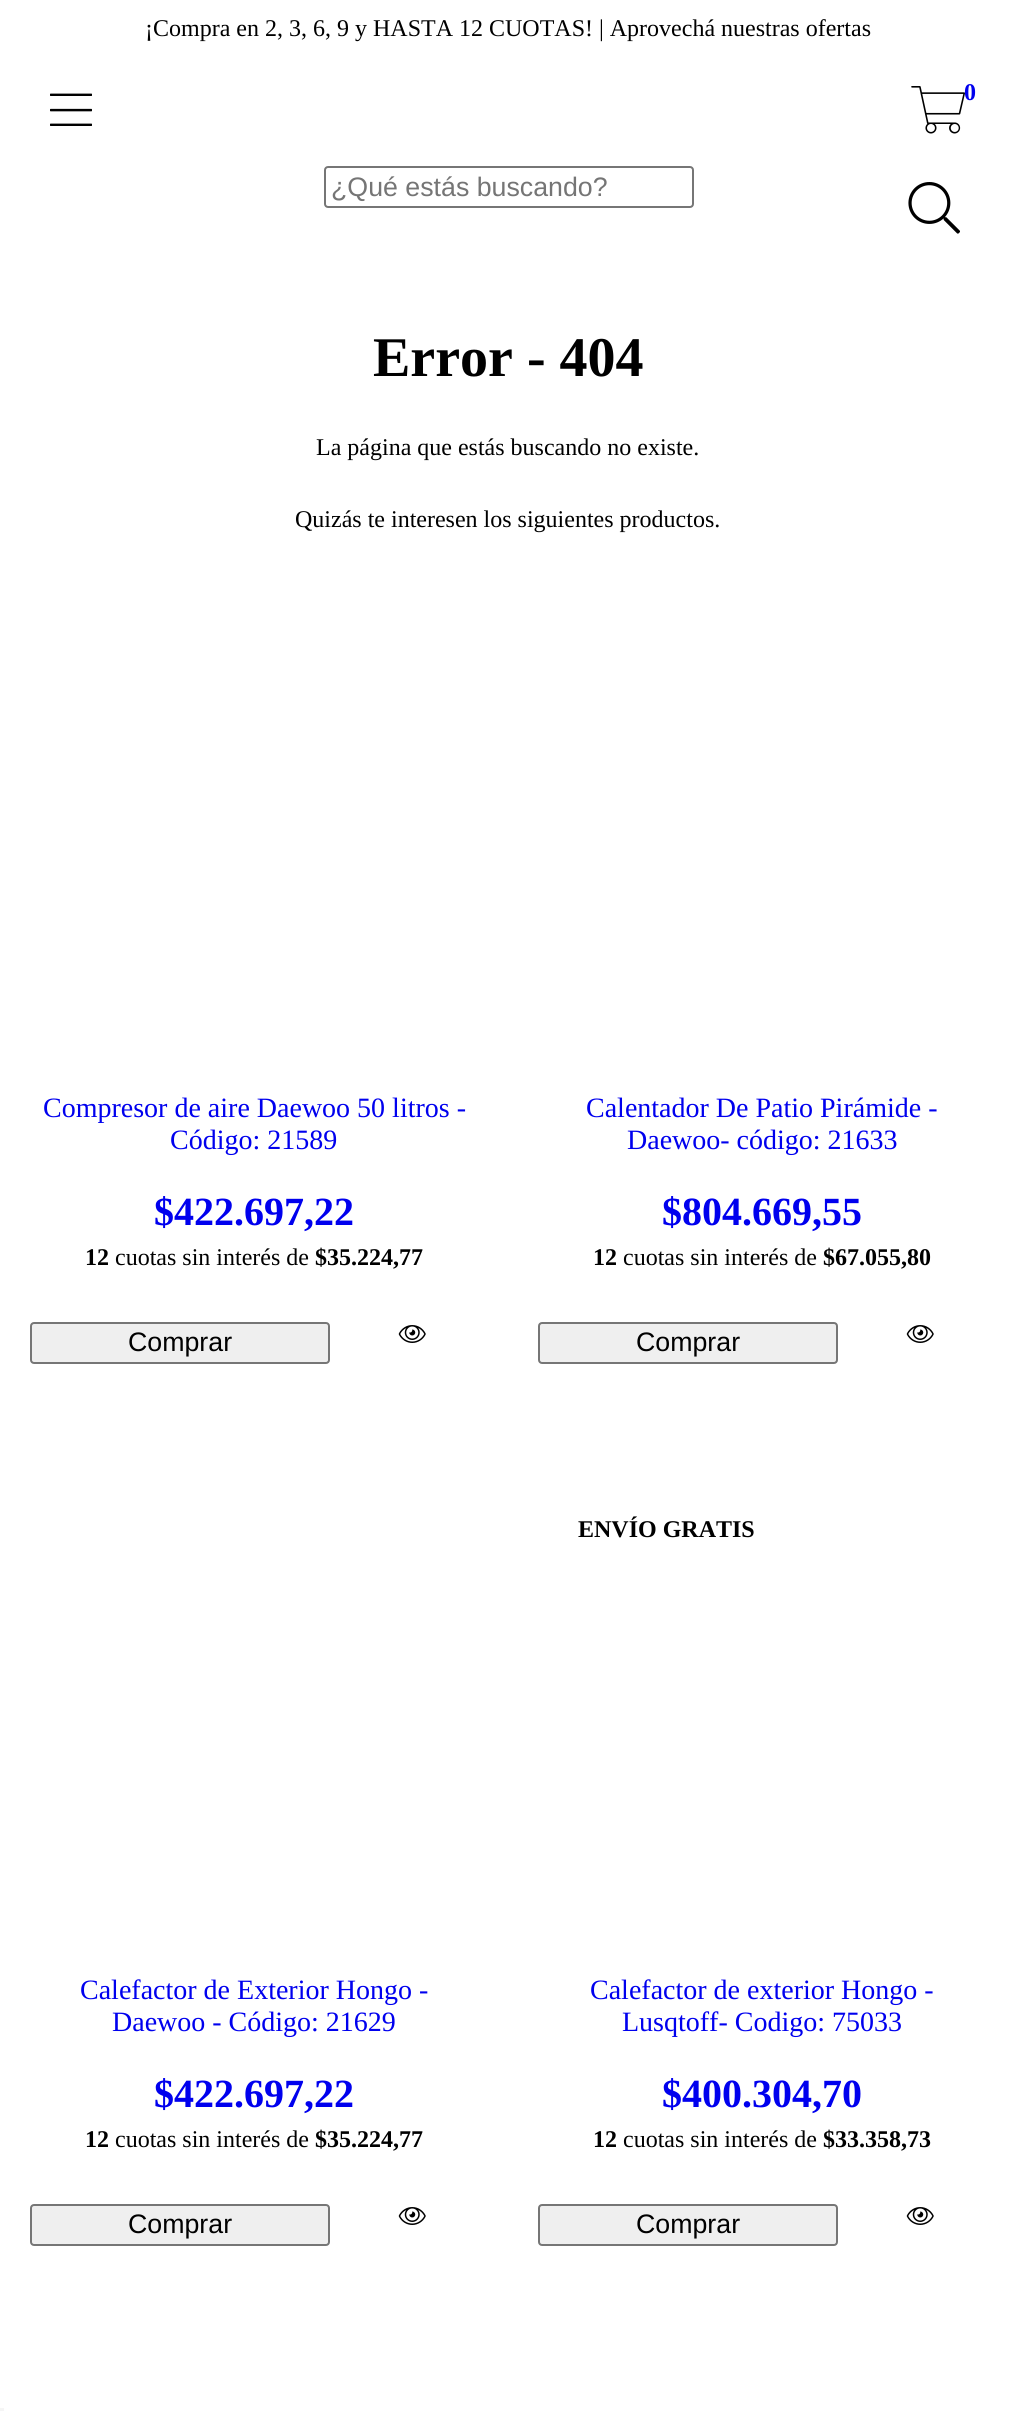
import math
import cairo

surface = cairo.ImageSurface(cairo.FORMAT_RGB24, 1015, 2411)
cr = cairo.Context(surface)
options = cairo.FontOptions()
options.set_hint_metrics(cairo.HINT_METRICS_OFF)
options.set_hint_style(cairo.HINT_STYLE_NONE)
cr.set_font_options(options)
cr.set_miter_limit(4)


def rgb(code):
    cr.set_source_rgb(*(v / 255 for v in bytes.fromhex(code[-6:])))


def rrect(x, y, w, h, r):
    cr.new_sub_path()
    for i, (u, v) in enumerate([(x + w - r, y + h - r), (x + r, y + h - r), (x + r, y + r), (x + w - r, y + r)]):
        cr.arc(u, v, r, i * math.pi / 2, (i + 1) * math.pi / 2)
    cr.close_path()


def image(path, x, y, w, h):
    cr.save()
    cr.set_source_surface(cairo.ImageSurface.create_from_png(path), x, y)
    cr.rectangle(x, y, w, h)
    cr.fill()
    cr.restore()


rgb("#ffffff")
cr.paint()
image("img/1.png", 50, 93, 42, 33)
image("img/2.png", 911, 86, 54, 48)
rrect(325, 167, 368, 40, 3)
rgb("#767676")
cr.stroke()
image("img/3.png", 908, 182, 52, 52)
rgb("#efefef")
rrect(31, 1323, 298, 40, 3)
cr.fill_preserve()
rgb("#767676")
cr.stroke()
image("img/4.png", 398, 1325, 28, 18)
rgb("#efefef")
rrect(539, 1323, 298, 40, 3)
cr.fill_preserve()
rgb("#767676")
cr.stroke()
image("img/4.png", 906, 1325, 28, 18)
rgb("#efefef")
rrect(31, 2205, 298, 40, 3)
cr.fill_preserve()
rgb("#767676")
cr.stroke()
image("img/4.png", 398, 2207, 28, 18)
rgb("#efefef")
rrect(539, 2205, 298, 40, 3)
cr.fill_preserve()
rgb("#767676")
cr.stroke()
image("img/4.png", 906, 2207, 28, 18)
rgb("#f5f5f5")
cr.rectangle(0, 2408, 4, 3)
cr.fill()
cr.select_font_face("Liberation Serif")
cr.set_font_size(24)
rgb("#000000")
cr.move_to(145, 36)
cr.show_text("¡Compra en 2, 3, 6, 9 y HASTA 12 CUOTAS! | Aprovechá nuestras ofertas")
cr.select_font_face("Liberation Serif", cairo.FONT_SLANT_NORMAL, cairo.FONT_WEIGHT_BOLD)
rgb("#0000ee")
cr.move_to(964, 100)
cr.show_text("0")
cr.select_font_face("Liberation Sans")
cr.set_font_size(26.75)
rgb("#757575")
cr.move_to(331, 196)
cr.show_text("¿Qué estás buscando?")
cr.select_font_face("Liberation Serif", cairo.FONT_SLANT_NORMAL, cairo.FONT_WEIGHT_BOLD)
cr.set_font_size(56)
rgb("#000000")
cr.move_to(373, 376)
cr.show_text("Error - 404")
cr.select_font_face("Liberation Serif")
cr.set_font_size(24)
cr.move_to(316, 455)
cr.show_text("La página que estás buscando no existe.")
cr.move_to(295, 527)
cr.show_text("Quizás te interesen los siguientes productos.")
cr.set_font_size(28)
rgb("#0000ee")
cr.move_to(43, 1117)
cr.show_text("Compresor de aire Daewoo 50 litros -")
cr.move_to(170, 1149)
cr.show_text("Código: 21589")
cr.select_font_face("Liberation Serif", cairo.FONT_SLANT_NORMAL, cairo.FONT_WEIGHT_BOLD)
cr.set_font_size(40)
cr.move_to(154, 1225)
cr.show_text("$422.697,22")
cr.set_font_size(24)
rgb("#000000")
cr.move_to(85, 1265)
cr.show_text("12")
cr.select_font_face("Liberation Serif")
cr.move_to(115, 1265)
cr.show_text("cuotas sin interés de")
cr.select_font_face("Liberation Serif", cairo.FONT_SLANT_NORMAL, cairo.FONT_WEIGHT_BOLD)
cr.move_to(315, 1265)
cr.show_text("$35.224,77")
cr.select_font_face("Liberation Sans")
cr.set_font_size(26.75)
cr.move_to(128, 1351)
cr.show_text("Comprar")
cr.select_font_face("Liberation Serif")
cr.set_font_size(28)
rgb("#0000ee")
cr.move_to(586, 1117)
cr.show_text("Calentador De Patio Pirámide -")
cr.move_to(627, 1149)
cr.show_text("Daewoo- código: 21633")
cr.select_font_face("Liberation Serif", cairo.FONT_SLANT_NORMAL, cairo.FONT_WEIGHT_BOLD)
cr.set_font_size(40)
cr.move_to(662, 1225)
cr.show_text("$804.669,55")
cr.set_font_size(24)
rgb("#000000")
cr.move_to(593, 1265)
cr.show_text("12")
cr.select_font_face("Liberation Serif")
cr.move_to(623, 1265)
cr.show_text("cuotas sin interés de")
cr.select_font_face("Liberation Serif", cairo.FONT_SLANT_NORMAL, cairo.FONT_WEIGHT_BOLD)
cr.move_to(823, 1265)
cr.show_text("$67.055,80")
cr.select_font_face("Liberation Sans")
cr.set_font_size(26.75)
cr.move_to(636, 1351)
cr.show_text("Comprar")
cr.select_font_face("Liberation Serif")
cr.set_font_size(28)
rgb("#0000ee")
cr.move_to(80, 1999)
cr.show_text("Calefactor de Exterior Hongo -")
cr.move_to(112, 2031)
cr.show_text("Daewoo - Código: 21629")
cr.select_font_face("Liberation Serif", cairo.FONT_SLANT_NORMAL, cairo.FONT_WEIGHT_BOLD)
cr.set_font_size(40)
cr.move_to(154, 2107)
cr.show_text("$422.697,22")
cr.set_font_size(24)
rgb("#000000")
cr.move_to(85, 2147)
cr.show_text("12")
cr.select_font_face("Liberation Serif")
cr.move_to(115, 2147)
cr.show_text("cuotas sin interés de")
cr.select_font_face("Liberation Serif", cairo.FONT_SLANT_NORMAL, cairo.FONT_WEIGHT_BOLD)
cr.move_to(315, 2147)
cr.show_text("$35.224,77")
cr.select_font_face("Liberation Sans")
cr.set_font_size(26.75)
cr.move_to(128, 2233)
cr.show_text("Comprar")
cr.select_font_face("Liberation Serif", cairo.FONT_SLANT_NORMAL, cairo.FONT_WEIGHT_BOLD)
cr.set_font_size(24)
cr.move_to(578, 1537)
cr.show_text("ENVÍO GRATIS")
cr.select_font_face("Liberation Serif")
cr.set_font_size(28)
rgb("#0000ee")
cr.move_to(590, 1999)
cr.show_text("Calefactor de exterior Hongo -")
cr.move_to(622, 2031)
cr.show_text("Lusqtoff- Codigo: 75033")
cr.select_font_face("Liberation Serif", cairo.FONT_SLANT_NORMAL, cairo.FONT_WEIGHT_BOLD)
cr.set_font_size(40)
cr.move_to(662, 2107)
cr.show_text("$400.304,70")
cr.set_font_size(24)
rgb("#000000")
cr.move_to(593, 2147)
cr.show_text("12")
cr.select_font_face("Liberation Serif")
cr.move_to(623, 2147)
cr.show_text("cuotas sin interés de")
cr.select_font_face("Liberation Serif", cairo.FONT_SLANT_NORMAL, cairo.FONT_WEIGHT_BOLD)
cr.move_to(823, 2147)
cr.show_text("$33.358,73")
cr.select_font_face("Liberation Sans")
cr.set_font_size(26.75)
cr.move_to(636, 2233)
cr.show_text("Comprar")
surface.write_to_png("page.png")
